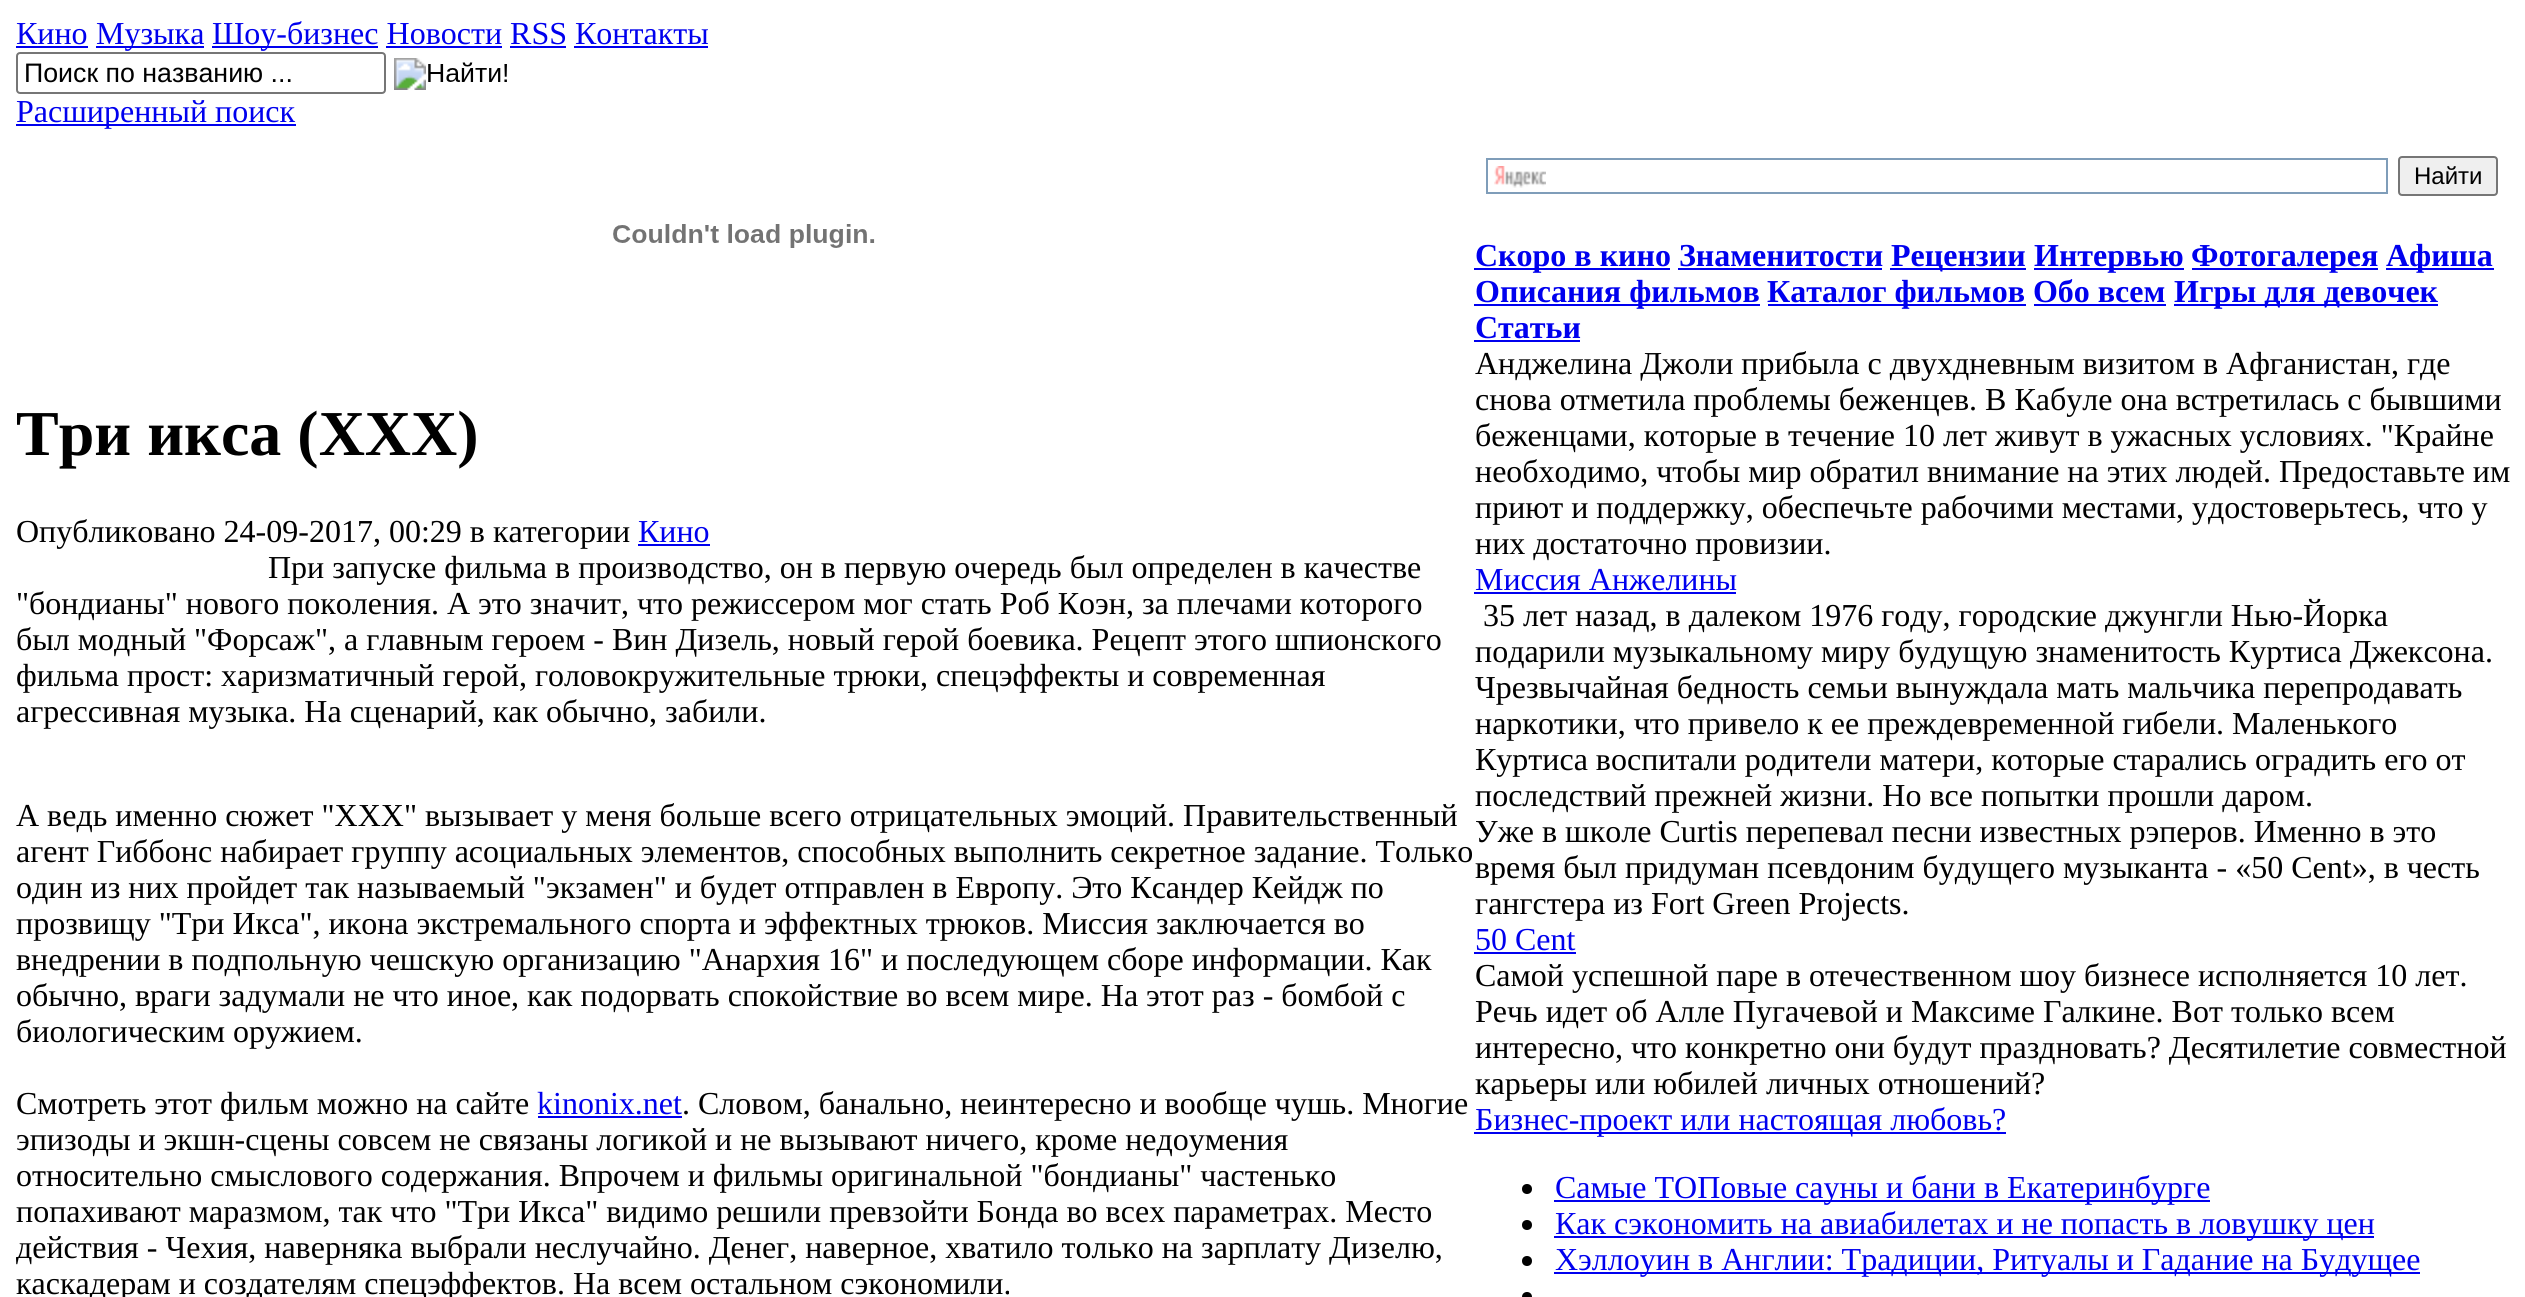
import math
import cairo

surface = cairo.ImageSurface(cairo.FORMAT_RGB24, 2525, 1297)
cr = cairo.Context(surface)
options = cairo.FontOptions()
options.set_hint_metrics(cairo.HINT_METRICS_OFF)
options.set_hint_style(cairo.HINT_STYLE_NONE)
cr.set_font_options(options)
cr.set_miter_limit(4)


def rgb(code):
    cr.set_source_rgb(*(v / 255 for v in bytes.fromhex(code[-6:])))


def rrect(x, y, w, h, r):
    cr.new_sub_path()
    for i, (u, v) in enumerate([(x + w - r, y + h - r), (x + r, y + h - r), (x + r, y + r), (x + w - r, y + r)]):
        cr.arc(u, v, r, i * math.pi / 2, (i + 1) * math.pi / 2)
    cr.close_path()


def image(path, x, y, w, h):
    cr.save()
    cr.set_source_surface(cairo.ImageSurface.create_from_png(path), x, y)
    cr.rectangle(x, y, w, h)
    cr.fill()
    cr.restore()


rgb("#ffffff")
cr.paint()
for x, y, w, h, color in [
    (16, 46, 72, 2, "#0000ee"),
    (96, 46, 108, 2, "#0000ee"),
    (212, 46, 166, 2, "#0000ee"),
    (386, 46, 116, 2, "#0000ee"),
    (510, 46, 56, 2, "#0000ee"),
    (574, 46, 134, 2, "#0000ee"),
]:
    rgb(color)
    cr.rectangle(x, y, w, h)
    cr.fill()
rrect(17, 53, 368, 40, 3)
rgb("#767676")
cr.stroke()
image("img/1.png", 394, 58, 113, 32)
rgb("#0000ee")
cr.rectangle(16, 124, 280, 2)
cr.fill()
image("img/2.png", 613, 224, 262, 24)
cr.rectangle(638, 544, 72, 2)
cr.fill()
cr.rectangle(538, 1116, 144, 2)
cr.fill()
image("img/3.png", 1494, 166, 52, 22)
cr.rectangle(1487, 159, 900, 34)
rgb("#7f9db9")
cr.stroke()
rgb("#efefef")
rrect(2399, 157, 98, 38, 3)
cr.fill_preserve()
rgb("#767676")
cr.stroke()
for x, y, w, h, color in [
    (1474, 268, 196, 2, "#0000ee"),
    (1890, 268, 136, 2, "#0000ee"),
    (2034, 268, 150, 2, "#0000ee"),
    (2192, 268, 186, 2, "#0000ee"),
    (2386, 268, 108, 2, "#0000ee"),
    (1678, 268, 204, 2, "#0000ee"),
    (1474, 304, 286, 2, "#0000ee"),
    (1768, 304, 258, 2, "#0000ee"),
    (2174, 304, 264, 2, "#0000ee"),
    (2034, 304, 132, 2, "#0000ee"),
    (1474, 340, 106, 2, "#0000ee"),
    (1474, 592, 262, 2, "#0000ee"),
    (1474, 952, 102, 2, "#0000ee"),
    (1474, 1132, 532, 2, "#0000ee"),
]:
    rgb(color)
    cr.rectangle(x, y, w, h)
    cr.fill()
rgb("#000000")
cr.arc(1527, 1189, 5, 0, 2 * math.pi)
cr.fill()
rgb("#0000ee")
cr.rectangle(1554, 1200, 656, 2)
cr.fill()
rgb("#000000")
cr.arc(1527, 1225, 5, 0, 2 * math.pi)
cr.fill()
rgb("#0000ee")
cr.rectangle(1554, 1236, 820, 2)
cr.fill()
rgb("#000000")
cr.arc(1527, 1261, 5, 0, 2 * math.pi)
cr.fill()
rgb("#0000ee")
cr.rectangle(1554, 1272, 866, 2)
cr.fill()
rgb("#000000")
cr.arc(1527, 1297, 5, 0, 2 * math.pi)
cr.fill()
cr.select_font_face("Liberation Serif")
cr.set_font_size(32)
rgb("#0000ee")
for x, y, s in [
    (16, 44, "Кино"),
    (96, 44, "Музыка"),
    (212, 44, "Шоу-бизнес Новости RSS Контакты"),
]:
    cr.move_to(x, y)
    cr.show_text(s)
cr.select_font_face("Liberation Sans")
cr.set_font_size(26.75)
rgb("#000000")
cr.move_to(24, 82)
cr.show_text("Поиск по названию ...")
cr.select_font_face("Liberation Serif")
cr.set_font_size(32)
rgb("#0000ee")
cr.move_to(16, 122)
cr.show_text("Расширенный поиск")
cr.select_font_face("Liberation Serif", cairo.FONT_SLANT_NORMAL, cairo.FONT_WEIGHT_BOLD)
cr.set_font_size(64)
rgb("#000000")
cr.move_to(16, 455)
cr.show_text("Три икса (XXX)")
cr.select_font_face("Liberation Serif")
cr.set_font_size(32)
cr.move_to(16, 542)
cr.show_text("Опубликовано 24-09-2017, 00:29 в категории")
rgb("#0000ee")
cr.move_to(638, 542)
cr.show_text("Кино")
rgb("#000000")
for x, y, s in [
    (268, 578, "При запуске фильма в производство, он в первую очередь был определен в качестве"),
    (16, 614, "\"бондианы\" нового поколения. А это значит, что режиссером мог стать Роб Коэн, за плечами которого"),
    (16, 650, "был модный \"Форсаж\", а главным героем - Вин Дизель, новый герой боевика. Рецепт этого шпионского"),
    (16, 686, "фильма прост: харизматичный герой, головокружительные трюки, спецэффекты и современная"),
    (16, 722, "агрессивная музыка. На сценарий, как обычно, забили."),
    (16, 826, "А ведь именно сюжет \"ХХХ\" вызывает у меня больше всего отрицательных эмоций. Правительственный"),
    (16, 862, "агент Гиббонс набирает группу асоциальных элементов, способных выполнить секретное задание. Только"),
    (16, 898, "один из них пройдет так называемый \"экзамен\" и будет отправлен в Европу. Это Ксандер Кейдж по"),
    (16, 934, "прозвищу \"Три Икса\", икона экстремального спорта и эффектных трюков. Миссия заключается во"),
    (16, 970, "внедрении в подпольную чешскую организацию \"Анархия 16\" и последующем сборе информации. Как"),
    (16, 1006, "обычно, враги задумали не что иное, как подорвать спокойствие во всем мире. На этот раз - бомбой с"),
    (16, 1042, "биологическим оружием."),
    (16, 1114, "Смотреть этот фильм можно на сайте"),
]:
    cr.move_to(x, y)
    cr.show_text(s)
rgb("#0000ee")
cr.move_to(537, 1114)
cr.show_text("kinonix.net")
rgb("#000000")
for x, y, s in [
    (682, 1114, ". Словом, банально, неинтересно и вообще чушь. Многие"),
    (16, 1150, "эпизоды и экшн-сцены совсем не связаны логикой и не вызывают ничего, кроме недоумения"),
    (16, 1186, "относительно смыслового содержания. Впрочем и фильмы оригинальной \"бондианы\" частенько"),
    (16, 1222, "попахивают маразмом, так что \"Три Икса\" видимо решили превзойти Бонда во всех параметрах. Место"),
    (16, 1258, "действия - Чехия, наверняка выбрали неслучайно. Денег, наверное, хватило только на зарплату Дизелю,"),
    (16, 1294, "каскадерам и создателям спецэффектов. На всем остальном сэкономили."),
]:
    cr.move_to(x, y)
    cr.show_text(s)
cr.select_font_face("Liberation Sans")
cr.set_font_size(24)
cr.move_to(2414, 184)
cr.show_text("Найти")
cr.select_font_face("Liberation Serif", cairo.FONT_SLANT_NORMAL, cairo.FONT_WEIGHT_BOLD)
cr.set_font_size(32)
rgb("#0000ee")
for x, y, s in [
    (1475, 266, "Скоро в кино Знаменитости"),
    (1891, 266, "Рецензии"),
    (2034, 266, "Интервью"),
    (2191, 266, "Фотогалерея"),
    (2386, 266, "Афиша"),
    (1475, 302, "Описания фильмов"),
    (1767, 302, "Каталог фильмов Обо всем"),
    (2174, 302, "Игры для девочек"),
    (1475, 338, "Статьи"),
]:
    cr.move_to(x, y)
    cr.show_text(s)
cr.select_font_face("Liberation Serif")
rgb("#000000")
for x, y, s in [
    (1475, 374, "Анджелина Джоли прибыла с двухдневным визитом в Афганистан, где"),
    (1475, 410, "снова отметила проблемы беженцев. В Кабуле она встретилась с бывшими"),
    (1475, 446, "беженцами, которые в течение 10 лет живут в ужасных условиях. \"Крайне"),
    (1475, 482, "необходимо, чтобы мир обратил внимание на этих людей. Предоставьте им"),
    (1475, 518, "приют и поддержку, обеспечьте рабочими местами, удостоверьтесь, что у"),
    (1475, 554, "них достаточно провизии."),
]:
    cr.move_to(x, y)
    cr.show_text(s)
rgb("#0000ee")
cr.move_to(1475, 590)
cr.show_text("Миссия Анжелины")
rgb("#000000")
for x, y, s in [
    (1483, 626, "35 лет назад, в далеком 1976 году, городские джунгли Нью-Йорка"),
    (1475, 662, "подарили музыкальному миру будущую знаменитость Куртиса Джексона."),
    (1475, 698, "Чрезвычайная бедность семьи вынуждала мать мальчика перепродавать"),
    (1475, 734, "наркотики, что привело к ее преждевременной гибели. Маленького"),
    (1475, 770, "Куртиса воспитали родители матери, которые старались оградить его от"),
    (1475, 806, "последствий прежней жизни. Но все попытки прошли даром."),
    (1475, 842, "Уже в школе Curtis перепевал песни известных рэперов. Именно в это"),
    (1475, 878, "время был придуман псевдоним будущего музыканта - «50 Cent», в честь"),
    (1475, 914, "гангстера из Fort Green Projects."),
]:
    cr.move_to(x, y)
    cr.show_text(s)
rgb("#0000ee")
cr.move_to(1475, 950)
cr.show_text("50 Cent")
rgb("#000000")
for x, y, s in [
    (1475, 986, "Самой успешной паре в отечественном шоу бизнесе исполняется 10 лет."),
    (1475, 1022, "Речь идет об Алле Пугачевой и Максиме Галкине. Вот только всем"),
    (1475, 1058, "интересно, что конкретно они будут праздновать? Десятилетие совместной"),
    (1475, 1094, "карьеры или юбилей личных отношений?"),
]:
    cr.move_to(x, y)
    cr.show_text(s)
rgb("#0000ee")
for x, y, s in [
    (1475, 1130, "Бизнес-проект или настоящая любовь?"),
    (1555, 1198, "Самые ТОПовые сауны и бани в Екатеринбурге"),
    (1555, 1234, "Как сэкономить на авиабилетах и не попасть в ловушку цен"),
    (1555, 1270, "Хэллоуин в Англии: Традиции, Ритуалы и Гадание на Будущее"),
]:
    cr.move_to(x, y)
    cr.show_text(s)
surface.write_to_png("page.png")
